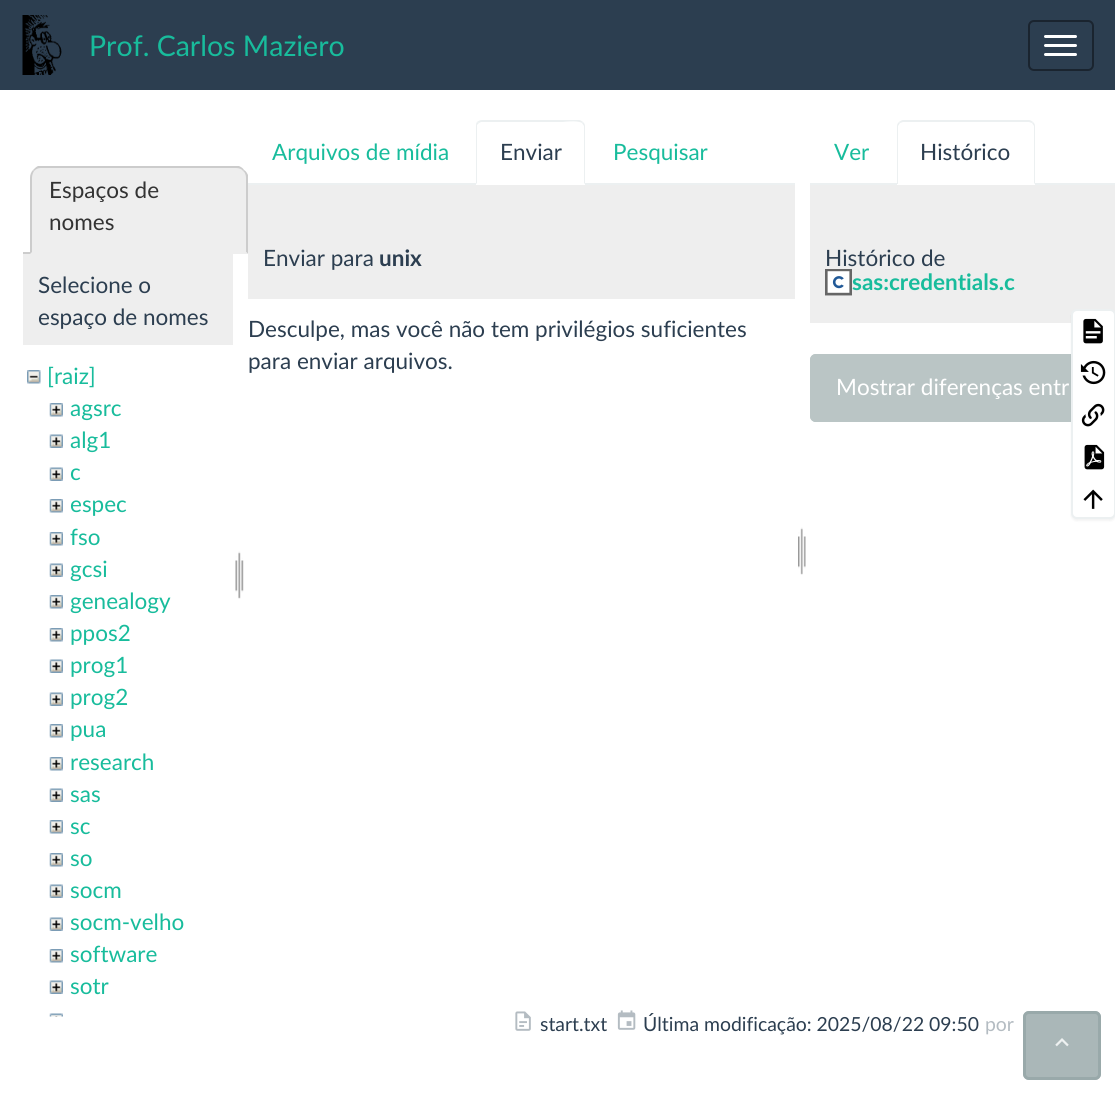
import math
import cairo

surface = cairo.ImageSurface(cairo.FORMAT_RGB24, 1115, 1094)
cr = cairo.Context(surface)
options = cairo.FontOptions()
options.set_hint_metrics(cairo.HINT_METRICS_OFF)
options.set_hint_style(cairo.HINT_STYLE_NONE)
cr.set_font_options(options)
cr.set_miter_limit(4)


def rgb(code):
    cr.set_source_rgb(*(v / 255 for v in bytes.fromhex(code[-6:])))


def rrect(x, y, w, h, r):
    cr.new_sub_path()
    for i, (u, v) in enumerate([(x + w - r, y + h - r), (x + r, y + h - r), (x + r, y + r), (x + w - r, y + r)]):
        cr.arc(u, v, r, i * math.pi / 2, (i + 1) * math.pi / 2)
    cr.close_path()


def soft_shadow(x, y, w, h, r, blur, alpha):
    cr.push_group_with_content(cairo.CONTENT_ALPHA)
    cr.set_operator(cairo.OPERATOR_SOURCE)
    for i in range(15, -16, -2):
        e = blur * i / 6
        if min(w, h) + 2 * e > 0:
            cr.set_source_rgba(0, 0, 0, alpha * math.erfc((i - 1) / 8.5) / 2)
            rrect(x - e, y - e, w + 2 * e, h + 2 * e, max(0, min(r + e + blur * .6, min(w, h) / 2 + e)))
            cr.fill()
    cr.mask(cr.pop_group())


def image(path, x, y, w, h):
    cr.save()
    cr.set_source_surface(cairo.ImageSurface.create_from_png(path), x, y)
    cr.rectangle(x, y, w, h)
    cr.fill()
    cr.restore()


rgb("#ffffff")
cr.paint()
rgb("#2c3e50")
cr.rectangle(0, 0, 1115, 90)
cr.fill()
image("img/1.png", 22, 15, 40, 60)
rrect(1029, 21, 64, 49, 5)
rgb("#1a242f")
cr.stroke()
rgb("#ffffff")
rrect(1044, 35, 33, 3, 1.5)
cr.fill()
rrect(1044, 44, 33, 3, 1.5)
cr.fill()
rrect(1044, 53, 33, 3, 1.5)
cr.fill()
rgb("#eeeeee")
cr.new_path()
cr.move_to(42, 167)
cr.line_to(236, 167)
cr.curve_to(242.5, 167, 248, 172.5, 248, 179)
cr.line_to(248, 254)
cr.line_to(30, 254)
cr.line_to(30, 179)
cr.curve_to(30, 172.5, 35.5, 167, 42, 167)
cr.close_path()
cr.fill()
rgb("#cccccc")
cr.new_path()
cr.move_to(41, 168)
cr.curve_to(38, 168, 36, 169, 34, 171)
cr.line_to(33, 170)
cr.curve_to(35, 168, 36, 167, 38, 166)
cr.line_to(239, 166)
cr.curve_to(241, 167, 243, 168, 244, 170)
cr.line_to(243, 171)
cr.curve_to(242, 169, 239, 168, 236, 168)
cr.close_path()
cr.fill()
cr.new_path()
cr.move_to(244, 170)
cr.curve_to(246, 171, 247, 173, 248, 175)
cr.line_to(248, 254)
cr.line_to(246, 252)
cr.line_to(246, 178)
cr.curve_to(246, 175, 245, 172, 243, 171)
cr.close_path()
cr.fill()
rgb("#eeeeee")
cr.new_path()
cr.move_to(248, 254)
cr.line_to(246, 252)
cr.line_to(32, 252)
cr.line_to(30, 254)
cr.close_path()
cr.fill()
rgb("#cccccc")
cr.new_path()
cr.move_to(30, 254)
cr.line_to(32, 252)
cr.line_to(32, 178)
cr.curve_to(32, 175, 33, 173, 34, 171)
cr.line_to(33, 170)
cr.curve_to(31, 172, 30, 175, 30, 178)
cr.close_path()
cr.fill()
rgb("#eeeeee")
cr.rectangle(23, 254, 210, 91)
cr.fill()
rgb("#cccccc")
cr.rectangle(23, 252, 7, 2)
cr.fill()
image("img/2.png", 27, 370, 14, 14)
image("img/3.png", 49, 403, 14, 14)
image("img/4.png", 49, 434, 14, 14)
image("img/4.png", 49, 467, 14, 14)
image("img/3.png", 49, 499, 14, 14)
image("img/3.png", 49, 532, 14, 14)
image("img/4.png", 49, 563, 14, 14)
image("img/3.png", 49, 595, 14, 14)
image("img/3.png", 49, 628, 14, 14)
image("img/4.png", 49, 659, 14, 14)
image("img/4.png", 49, 692, 14, 14)
image("img/3.png", 49, 724, 14, 14)
image("img/3.png", 49, 757, 14, 14)
image("img/4.png", 49, 788, 14, 14)
image("img/3.png", 49, 820, 14, 14)
image("img/3.png", 49, 853, 14, 14)
image("img/4.png", 49, 884, 14, 14)
image("img/4.png", 49, 917, 14, 14)
image("img/3.png", 49, 949, 14, 14)
image("img/4.png", 49, 980, 14, 14)
image("img/5.png", 49, 1013, 14, 4)
image("img/6.png", 235, 551, 9, 48)
rgb("#ecf0f1")
cr.rectangle(248, 183, 547, 2)
cr.fill()
rgb("#ffffff")
cr.new_path()
cr.move_to(482, 120)
cr.line_to(579, 120)
cr.curve_to(582.5, 120, 585, 122.5, 585, 126)
cr.line_to(585, 185)
cr.line_to(476, 185)
cr.line_to(476, 126)
cr.curve_to(476, 122.5, 478.5, 120, 482, 120)
cr.close_path()
cr.fill()
rgb("#ecf0f1")
cr.new_path()
cr.move_to(482, 120)
cr.curve_to(480, 120, 478, 121, 477, 122)
cr.line_to(479, 123)
cr.line_to(481, 122)
cr.line_to(563, 122)
cr.curve_to(563, 122, 577, 120, 582, 123)
cr.line_to(583, 122)
cr.curve_to(582, 121, 580, 120, 579, 120)
cr.close_path()
cr.fill()
cr.new_path()
cr.move_to(585, 184)
cr.line_to(585, 126)
cr.curve_to(585, 124, 584, 123, 583, 122)
cr.line_to(582, 123)
cr.line_to(584, 126)
cr.line_to(584, 183)
cr.close_path()
cr.fill()
cr.new_path()
cr.move_to(477, 122)
cr.curve_to(476, 123, 476, 125, 476, 126)
cr.line_to(476, 184)
cr.line_to(477, 183)
cr.line_to(477, 125)
cr.line_to(479, 123)
cr.close_path()
cr.fill()
rgb("#eeeeee")
cr.rectangle(248, 185, 547, 114)
cr.fill()
image("img/7.png", 798, 527, 8, 48)
rgb("#ecf0f1")
cr.rectangle(810, 183, 305, 2)
cr.fill()
rgb("#ffffff")
cr.new_path()
cr.move_to(903, 120)
cr.line_to(1029, 120)
cr.curve_to(1032.5, 120, 1035, 122.5, 1035, 126)
cr.line_to(1035, 185)
cr.line_to(897, 185)
cr.line_to(897, 126)
cr.curve_to(897, 122.5, 899.5, 120, 903, 120)
cr.close_path()
cr.fill()
rgb("#ecf0f1")
cr.new_path()
cr.move_to(903, 120)
cr.curve_to(902, 120, 900, 121, 899, 122)
cr.line_to(900, 123)
cr.line_to(903, 122)
cr.line_to(1029, 122)
cr.line_to(1032, 123)
cr.line_to(1033, 122)
cr.curve_to(1032, 121, 1030, 120, 1029, 120)
cr.close_path()
cr.fill()
cr.new_path()
cr.move_to(1035, 184)
cr.line_to(1035, 126)
cr.curve_to(1035, 124, 1034, 123, 1033, 122)
cr.line_to(1032, 123)
cr.line_to(1034, 126)
cr.line_to(1034, 183)
cr.close_path()
cr.fill()
cr.new_path()
cr.move_to(897, 126)
cr.line_to(897, 184)
cr.line_to(898, 184)
cr.line_to(898, 183)
cr.line_to(898, 126)
cr.line_to(900, 123)
cr.line_to(899, 122)
cr.curve_to(898, 123, 897, 124, 897, 126)
cr.close_path()
cr.fill()
rgb("#eeeeee")
cr.rectangle(810, 185, 305, 138)
cr.fill()
image("img/8.png", 825, 269, 27, 27)
rgb("#bac5c5")
cr.new_path()
cr.move_to(816, 354)
cr.line_to(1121, 354)
cr.line_to(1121, 422)
cr.line_to(816, 422)
cr.curve_to(812.5, 422, 810, 419.5, 810, 416)
cr.line_to(810, 360)
cr.curve_to(810, 356.5, 812.5, 354, 816, 354)
cr.close_path()
cr.fill()
rrect(811.5, 355.5, 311, 65, 4.5)
cr.set_line_width(3)
cr.stroke()
rgb("#000000")
soft_shadow(1071, 311, 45, 210, 6, 1, 0.05)
rgb("#ffffff")
rrect(1072, 310, 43, 208, 5)
cr.fill_preserve()
rgb("#ecf0f1")
cr.set_line_width(2)
cr.stroke()
image("img/9.png", 1083, 318, 20, 26)
image("img/10.png", 1080, 360, 26, 25)
image("img/11.png", 1081, 403, 24, 24)
image("img/12.png", 1084, 444, 21, 26)
image("img/13.png", 1083, 489, 20, 20)
image("img/14.png", 515, 1011, 16, 20)
image("img/15.png", 617, 1010, 19, 20)
cr.set_source_rgba(0.584, 0.647, 0.651, 0.8)
rrect(1023, 1011, 78, 69, 6)
cr.fill()
rrect(1024.5, 1012.5, 75, 66, 4.5)
cr.set_line_width(3)
cr.stroke()
image("img/16.png", 1055, 1038, 14, 9)
cr.select_font_face("Lato")
cr.set_font_size(28.5)
rgb("#18bc9c")
cr.move_to(89, 56)
cr.show_text("Prof. Carlos Maziero")
cr.set_font_size(22.5)
rgb("#333333")
cr.move_to(49, 198)
cr.show_text("Espaços de")
cr.move_to(49, 230)
cr.show_text("nomes")
rgb("#2c3e50")
cr.move_to(38, 293)
cr.show_text("Selecione o")
cr.move_to(38, 325)
cr.show_text("espaço de nomes")
rgb("#18bc9c")
for x, y, s in [
    (47, 384, "[raiz]"),
    (70, 416, "agsrc"),
    (70, 448, "alg1"),
    (70, 480, "c"),
    (70, 512, "espec"),
    (70, 545, "fso"),
    (70, 577, "gcsi"),
    (70, 609, "genealogy"),
    (70, 641, "ppos2"),
    (70, 673, "prog1"),
    (70, 705, "prog2"),
    (70, 737, "pua"),
    (70, 770, "research"),
    (70, 802, "sas"),
    (70, 834, "sc"),
    (70, 866, "so"),
    (70, 898, "socm"),
    (70, 930, "socm-velho"),
    (70, 962, "software"),
    (70, 994, "sotr"),
    (272, 160, "Arquivos de mídia"),
]:
    cr.move_to(x, y)
    cr.show_text(s)
rgb("#2c3e50")
cr.move_to(500, 160)
cr.show_text("Enviar")
rgb("#18bc9c")
cr.move_to(613, 160)
cr.show_text("Pesquisar")
rgb("#2c3e50")
cr.move_to(263, 266)
cr.show_text("Enviar para")
cr.select_font_face("Lato", cairo.FONT_SLANT_NORMAL, cairo.FONT_WEIGHT_BOLD)
cr.move_to(379, 266)
cr.show_text("unix")
cr.select_font_face("Lato")
cr.move_to(248, 337)
cr.show_text("Desculpe, mas você não tem privilégios suficientes")
cr.move_to(248, 369)
cr.show_text("para enviar arquivos.")
rgb("#18bc9c")
cr.move_to(834, 160)
cr.show_text("Ver")
rgb("#2c3e50")
cr.move_to(920, 160)
cr.show_text("Histórico")
cr.move_to(825, 266)
cr.show_text("Histórico de")
cr.select_font_face("Lato", cairo.FONT_SLANT_NORMAL, cairo.FONT_WEIGHT_BOLD)
rgb("#18bc9c")
cr.move_to(852, 290)
cr.show_text("sas:credentials.c")
cr.select_font_face("Lato")
rgb("#ffffff")
cr.move_to(836, 395)
cr.show_text("Mostrar diferenças entr")
cr.set_font_size(19.4)
rgb("#2c3e50")
cr.move_to(540, 1031)
cr.show_text("start.txt")
cr.move_to(643, 1031)
cr.show_text("Última modificação: 2025/08/22 09:50")
rgb("#b4bcc2")
cr.move_to(985, 1031)
cr.show_text("por")
surface.write_to_png("page.png")
